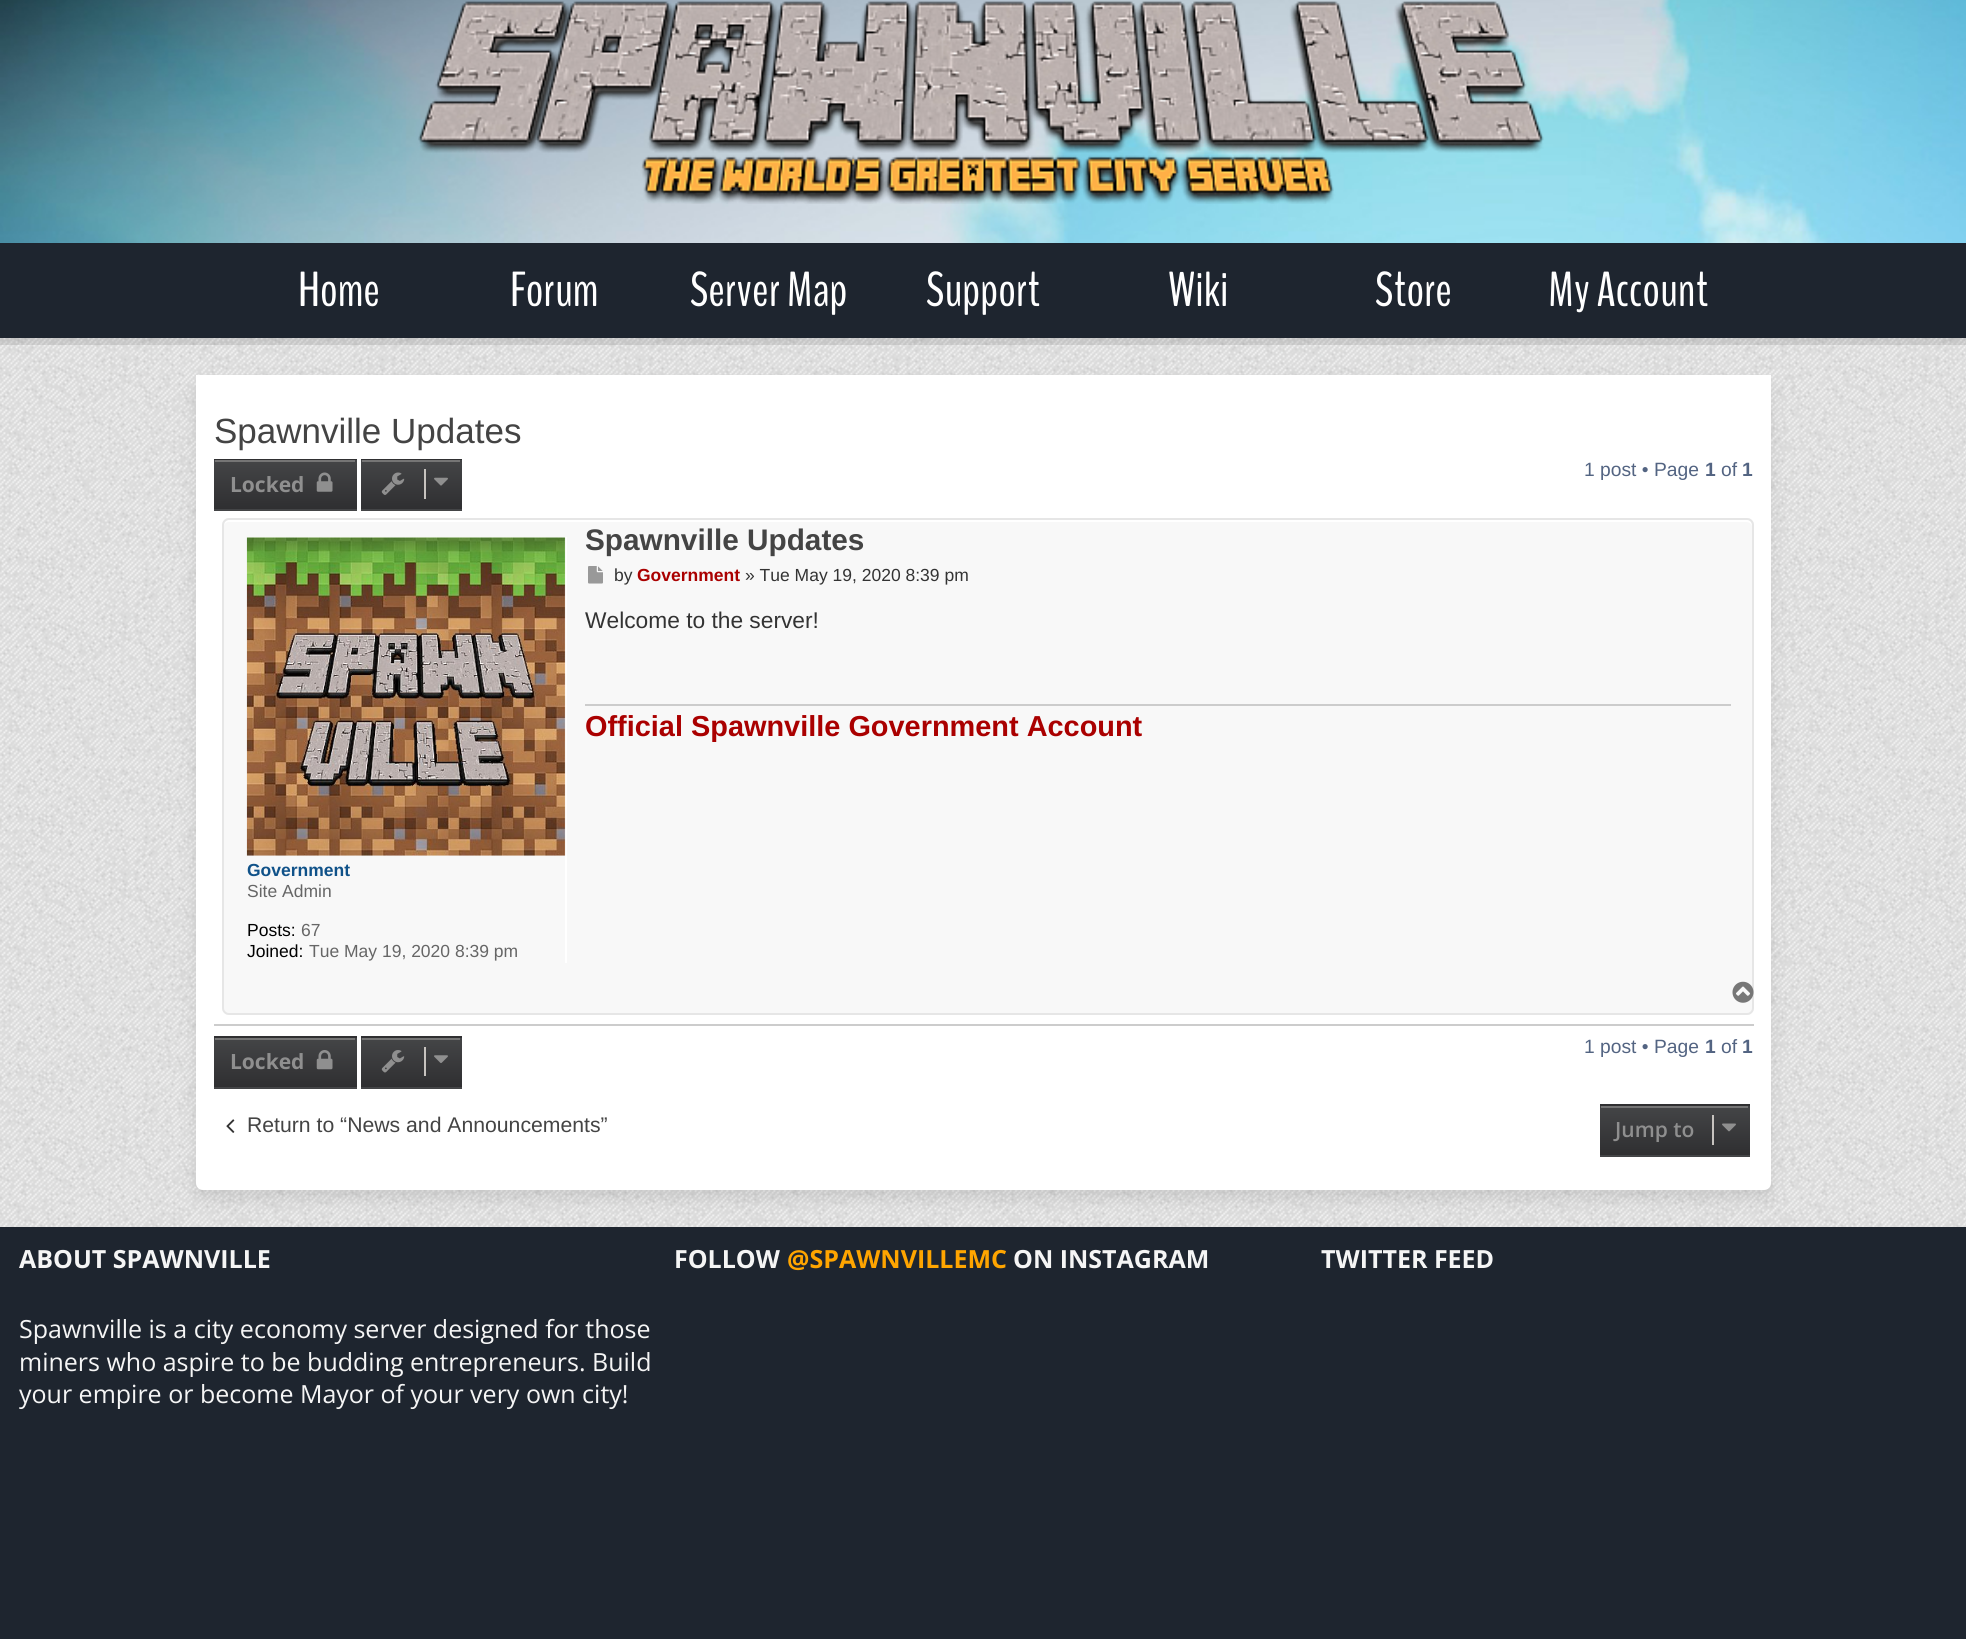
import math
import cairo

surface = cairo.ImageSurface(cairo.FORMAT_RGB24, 1966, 1639)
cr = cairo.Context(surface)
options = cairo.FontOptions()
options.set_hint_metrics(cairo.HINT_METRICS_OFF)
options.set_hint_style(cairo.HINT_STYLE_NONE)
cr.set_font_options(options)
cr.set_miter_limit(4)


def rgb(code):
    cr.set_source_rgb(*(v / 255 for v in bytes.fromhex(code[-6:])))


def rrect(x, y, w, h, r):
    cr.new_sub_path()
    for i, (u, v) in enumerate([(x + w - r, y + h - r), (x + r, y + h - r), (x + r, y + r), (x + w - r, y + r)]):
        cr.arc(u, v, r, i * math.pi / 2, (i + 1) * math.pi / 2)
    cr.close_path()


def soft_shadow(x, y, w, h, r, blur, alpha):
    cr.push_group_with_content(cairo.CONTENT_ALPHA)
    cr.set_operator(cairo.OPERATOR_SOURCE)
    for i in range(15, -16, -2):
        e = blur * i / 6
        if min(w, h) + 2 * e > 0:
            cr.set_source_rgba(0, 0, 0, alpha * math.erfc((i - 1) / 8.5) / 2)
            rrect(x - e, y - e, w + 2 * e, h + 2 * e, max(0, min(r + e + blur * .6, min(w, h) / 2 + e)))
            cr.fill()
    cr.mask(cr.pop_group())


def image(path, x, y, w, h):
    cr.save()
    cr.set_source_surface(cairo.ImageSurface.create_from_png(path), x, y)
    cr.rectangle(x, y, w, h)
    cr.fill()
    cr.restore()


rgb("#ffffff")
cr.paint()
image("img/1.png", 0, 338, 1966, 889)
image("img/2.png", 0, 0, 1966, 243)
image("img/3.png", 418, 1, 1126, 203)
cr.set_source_rgba(0, 0, 0, 0.1)
cr.rectangle(0, 338, 1966, 7)
cr.fill()
rgb("#1e252f")
cr.rectangle(0, 243, 1966, 95)
cr.fill()
rgb("#000000")
soft_shadow(196, 383, 1575, 816, 7, 8, 0.1)
rgb("#ffffff")
cr.new_path()
cr.move_to(196, 375)
cr.line_to(1771, 375)
cr.line_to(1771, 1183)
cr.curve_to(1771, 1187, 1768, 1190, 1764, 1190)
cr.line_to(203, 1190)
cr.curve_to(199, 1190, 196, 1187, 196, 1183)
cr.close_path()
cr.fill()
gradient = cairo.LinearGradient(411, 411, 411, 460)
gradient.add_color_stop_rgba(0, 0.267, 0.271, 0.278, 1)
gradient.add_color_stop_rgba(1, 0.184, 0.184, 0.192, 1)
cr.set_source(gradient)
cr.rectangle(361, 459, 101, 1)
cr.fill()
gradient = cairo.LinearGradient(411, 460, 411, 509)
gradient.add_color_stop_rgba(0, 0.267, 0.271, 0.278, 1)
gradient.add_color_stop_rgba(1, 0.184, 0.184, 0.192, 1)
cr.set_source(gradient)
cr.rectangle(361, 460, 101, 49)
cr.fill()
gradient = cairo.LinearGradient(411, 509, 411, 558)
gradient.add_color_stop_rgba(0, 0.267, 0.271, 0.278, 1)
gradient.add_color_stop_rgba(1, 0.184, 0.184, 0.192, 1)
cr.set_source(gradient)
cr.rectangle(361, 509, 101, 2)
cr.fill()
rgb("#757575")
cr.rectangle(362, 460, 98, 2)
cr.fill()
image("img/4.png", 381, 472, 24, 23)
rgb("#c7c3bf")
cr.rectangle(424, 469, 2, 30)
cr.fill()
image("img/5.png", 434, 477, 14, 9)
gradient = cairo.LinearGradient(285, 411, 285, 460)
gradient.add_color_stop_rgba(0, 0.267, 0.271, 0.278, 1)
gradient.add_color_stop_rgba(1, 0.184, 0.184, 0.192, 1)
cr.set_source(gradient)
cr.rectangle(214, 459, 143, 1)
cr.fill()
gradient = cairo.LinearGradient(285, 460, 285, 509)
gradient.add_color_stop_rgba(0, 0.267, 0.271, 0.278, 1)
gradient.add_color_stop_rgba(1, 0.184, 0.184, 0.192, 1)
cr.set_source(gradient)
cr.rectangle(214, 460, 143, 49)
cr.fill()
gradient = cairo.LinearGradient(285, 509, 285, 558)
gradient.add_color_stop_rgba(0, 0.267, 0.271, 0.278, 1)
gradient.add_color_stop_rgba(1, 0.184, 0.184, 0.192, 1)
cr.set_source(gradient)
cr.rectangle(214, 509, 143, 2)
cr.fill()
rgb("#757575")
cr.rectangle(215, 460, 140, 2)
cr.fill()
image("img/6.png", 316, 472, 17, 20)
rgb("#f8f8f8")
rrect(222, 518, 1532, 497, 7)
cr.fill()
rgb("#ffffff")
cr.new_path()
cr.move_to(229, 522)
cr.line_to(1746, 522)
cr.curve_to(1749, 522, 1752, 524, 1752, 527)
cr.curve_to(1752, 524, 1751, 520, 1747, 520)
cr.line_to(229, 520)
cr.curve_to(225, 520, 224, 524, 224, 527)
cr.curve_to(224, 524, 226, 522, 229, 522)
cr.close_path()
cr.fill()
rrect(223, 519, 1530, 495, 6)
rgb("#e6e6e6")
cr.stroke()
image("img/7.png", 588, 566, 15, 18)
rgb("#cccccc")
cr.rectangle(585, 704, 1146, 2)
cr.fill()
rgb("#ffffff")
cr.rectangle(565, 537, 2, 426)
cr.fill()
image("img/8.png", 246, 537, 320, 319)
image("img/9.png", 1732, 981, 22, 22)
rgb("#cccccc")
cr.rectangle(214, 1024, 1540, 2)
cr.fill()
gradient = cairo.LinearGradient(411, 989, 411, 1038)
gradient.add_color_stop_rgba(0, 0.267, 0.271, 0.278, 1)
gradient.add_color_stop_rgba(1, 0.184, 0.184, 0.192, 1)
cr.set_source(gradient)
cr.rectangle(361, 1036, 101, 2)
cr.fill()
gradient = cairo.LinearGradient(411, 1038, 411, 1087)
gradient.add_color_stop_rgba(0, 0.267, 0.271, 0.278, 1)
gradient.add_color_stop_rgba(1, 0.184, 0.184, 0.192, 1)
cr.set_source(gradient)
cr.rectangle(361, 1038, 101, 49)
cr.fill()
gradient = cairo.LinearGradient(411, 1087, 411, 1136)
gradient.add_color_stop_rgba(0, 0.267, 0.271, 0.278, 1)
gradient.add_color_stop_rgba(1, 0.184, 0.184, 0.192, 1)
cr.set_source(gradient)
cr.rectangle(361, 1087, 101, 2)
cr.fill()
rgb("#757575")
cr.rectangle(362, 1038, 98, 2)
cr.fill()
image("img/10.png", 381, 1050, 24, 23)
rgb("#c7c3bf")
cr.rectangle(424, 1047, 2, 29)
cr.fill()
image("img/11.png", 434, 1055, 14, 8)
gradient = cairo.LinearGradient(285, 989, 285, 1038)
gradient.add_color_stop_rgba(0, 0.267, 0.271, 0.278, 1)
gradient.add_color_stop_rgba(1, 0.184, 0.184, 0.192, 1)
cr.set_source(gradient)
cr.rectangle(214, 1036, 143, 2)
cr.fill()
gradient = cairo.LinearGradient(285, 1038, 285, 1087)
gradient.add_color_stop_rgba(0, 0.267, 0.271, 0.278, 1)
gradient.add_color_stop_rgba(1, 0.184, 0.184, 0.192, 1)
cr.set_source(gradient)
cr.rectangle(214, 1038, 143, 49)
cr.fill()
gradient = cairo.LinearGradient(285, 1087, 285, 1136)
gradient.add_color_stop_rgba(0, 0.267, 0.271, 0.278, 1)
gradient.add_color_stop_rgba(1, 0.184, 0.184, 0.192, 1)
cr.set_source(gradient)
cr.rectangle(214, 1087, 143, 2)
cr.fill()
rgb("#757575")
cr.rectangle(215, 1038, 140, 2)
cr.fill()
image("img/12.png", 316, 1050, 17, 20)
image("img/13.png", 226, 1119, 9, 14)
gradient = cairo.LinearGradient(1675, 1057, 1675, 1106)
gradient.add_color_stop_rgba(0, 0.267, 0.271, 0.278, 1)
gradient.add_color_stop_rgba(1, 0.184, 0.184, 0.192, 1)
cr.set_source(gradient)
cr.rectangle(1600, 1104, 150, 2)
cr.fill()
gradient = cairo.LinearGradient(1675, 1106, 1675, 1155)
gradient.add_color_stop_rgba(0, 0.267, 0.271, 0.278, 1)
gradient.add_color_stop_rgba(1, 0.184, 0.184, 0.192, 1)
cr.set_source(gradient)
cr.rectangle(1600, 1106, 150, 49)
cr.fill()
gradient = cairo.LinearGradient(1675, 1155, 1675, 1204)
gradient.add_color_stop_rgba(0, 0.267, 0.271, 0.278, 1)
gradient.add_color_stop_rgba(1, 0.184, 0.184, 0.192, 1)
cr.set_source(gradient)
cr.rectangle(1600, 1155, 150, 2)
cr.fill()
rgb("#757575")
cr.rectangle(1601, 1106, 147, 2)
cr.fill()
rgb("#c7c3bf")
cr.rectangle(1712, 1115, 2, 30)
cr.fill()
image("img/14.png", 1722, 1123, 14, 9)
rgb("#1e252f")
cr.rectangle(0, 1227, 1966, 412)
cr.fill()
cr.select_font_face("BenchNine")
cr.set_font_size(49)
rgb("#ffffff")
for x, y, s in [
    (298, 306, "Home"),
    (510, 306, "Forum"),
    (690, 306, "Server Map"),
    (926, 306, "Support"),
    (1168, 306, "Wiki"),
    (1375, 306, "Store"),
    (1548, 306, "My Account"),
]:
    cr.move_to(x, y)
    cr.show_text(s)
cr.select_font_face("Liberation Sans")
cr.set_font_size(35)
rgb("#444444")
cr.move_to(214, 443)
cr.show_text("Spawnville Updates")
cr.set_font_size(19.25)
rgb("#536482")
cr.move_to(1584, 476)
cr.show_text("1 post • Page")
cr.select_font_face("Liberation Sans", cairo.FONT_SLANT_NORMAL, cairo.FONT_WEIGHT_BOLD)
cr.move_to(1705, 476)
cr.show_text("1")
cr.select_font_face("Liberation Sans")
cr.move_to(1721, 476)
cr.show_text("of")
cr.select_font_face("Liberation Sans", cairo.FONT_SLANT_NORMAL, cairo.FONT_WEIGHT_BOLD)
cr.move_to(1742, 476)
cr.show_text("1")
cr.select_font_face("Open Sans", cairo.FONT_SLANT_NORMAL, cairo.FONT_WEIGHT_BOLD)
cr.set_font_size(21)
rgb("#8f8f8f")
cr.move_to(230, 492)
cr.show_text("Locked")
cr.select_font_face("Liberation Sans", cairo.FONT_SLANT_NORMAL, cairo.FONT_WEIGHT_BOLD)
cr.set_font_size(29.75)
rgb("#444444")
cr.move_to(585, 550)
cr.show_text("Spawnville Updates")
cr.select_font_face("Liberation Sans")
cr.set_font_size(17.5)
rgb("#333333")
cr.move_to(614, 581)
cr.show_text("by")
cr.select_font_face("Liberation Sans", cairo.FONT_SLANT_NORMAL, cairo.FONT_WEIGHT_BOLD)
rgb("#aa0000")
cr.move_to(637, 581)
cr.show_text("Government")
cr.select_font_face("Liberation Sans")
rgb("#333333")
cr.move_to(745, 581)
cr.show_text("» Tue May 19, 2020 8:39 pm")
cr.set_font_size(22.75)
cr.move_to(585, 628)
cr.show_text("Welcome to the server!")
cr.select_font_face("Liberation Sans", cairo.FONT_SLANT_NORMAL, cairo.FONT_WEIGHT_BOLD)
cr.set_font_size(28.9)
rgb("#aa0000")
cr.move_to(585, 736)
cr.show_text("Official Spawnville Government Account")
cr.set_font_size(17.5)
rgb("#105289")
cr.move_to(247, 876)
cr.show_text("Government")
cr.select_font_face("Liberation Sans")
rgb("#666666")
cr.move_to(247, 897)
cr.show_text("Site Admin")
rgb("#000000")
cr.move_to(247, 936)
cr.show_text("Posts:")
rgb("#666666")
cr.move_to(301, 936)
cr.show_text("67")
rgb("#000000")
cr.move_to(247, 957)
cr.show_text("Joined:")
rgb("#666666")
cr.move_to(309, 957)
cr.show_text("Tue May 19, 2020 8:39 pm")
cr.set_font_size(19.25)
rgb("#536482")
cr.move_to(1584, 1053)
cr.show_text("1 post • Page")
cr.select_font_face("Liberation Sans", cairo.FONT_SLANT_NORMAL, cairo.FONT_WEIGHT_BOLD)
cr.move_to(1705, 1053)
cr.show_text("1")
cr.select_font_face("Liberation Sans")
cr.move_to(1721, 1053)
cr.show_text("of")
cr.select_font_face("Liberation Sans", cairo.FONT_SLANT_NORMAL, cairo.FONT_WEIGHT_BOLD)
cr.move_to(1742, 1053)
cr.show_text("1")
cr.select_font_face("Open Sans", cairo.FONT_SLANT_NORMAL, cairo.FONT_WEIGHT_BOLD)
cr.set_font_size(21)
rgb("#8f8f8f")
cr.move_to(230, 1069)
cr.show_text("Locked")
cr.select_font_face("Liberation Sans")
cr.set_font_size(21.2)
rgb("#444444")
cr.move_to(247, 1132)
cr.show_text("Return to “News and Announcements”")
cr.select_font_face("Open Sans SemiBold")
cr.set_font_size(21)
rgb("#8f8f8f")
cr.move_to(1615, 1137)
cr.show_text("Jump to")
cr.select_font_face("Open Sans", cairo.FONT_SLANT_NORMAL, cairo.FONT_WEIGHT_BOLD)
cr.set_font_size(25)
rgb("#f5f5f5")
cr.move_to(19, 1268)
cr.show_text("ABOUT SPAWNVILLE")
cr.select_font_face("Open Sans")
for x, y, s in [
    (19, 1338, "Spawnville is a city economy server designed for those"),
    (19, 1371, "miners who aspire to be budding entrepreneurs. Build"),
    (19, 1403, "your empire or become Mayor of your very own city!"),
]:
    cr.move_to(x, y)
    cr.show_text(s)
cr.select_font_face("Open Sans", cairo.FONT_SLANT_NORMAL, cairo.FONT_WEIGHT_BOLD)
cr.move_to(674, 1268)
cr.show_text("FOLLOW")
rgb("#ffa500")
cr.move_to(787, 1268)
cr.show_text("@SPAWNVILLEMC")
rgb("#f5f5f5")
cr.move_to(1013, 1268)
cr.show_text("ON INSTAGRAM")
cr.move_to(1321, 1268)
cr.show_text("TWITTER FEED")
surface.write_to_png("page.png")
